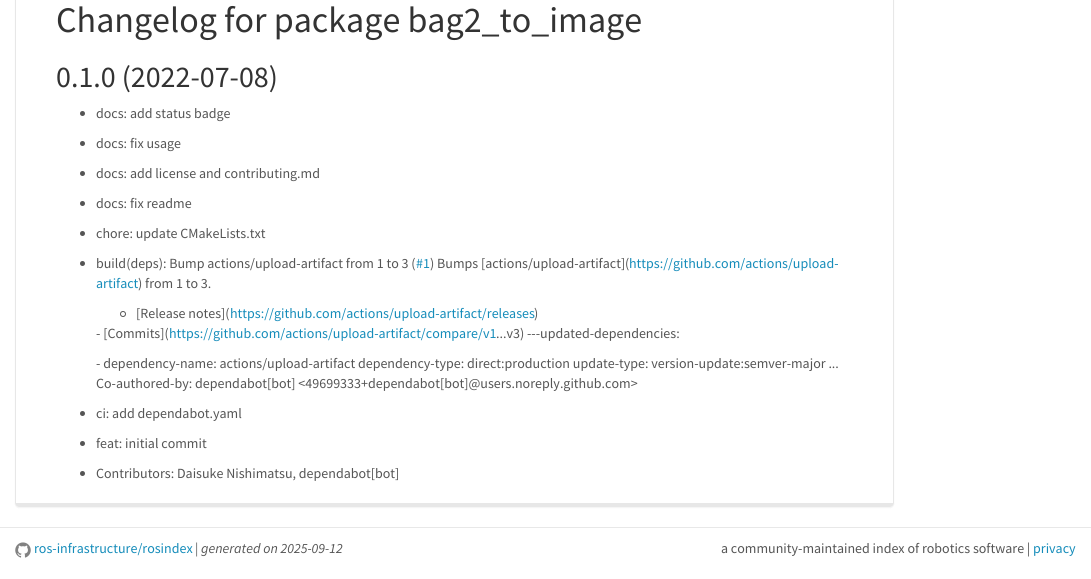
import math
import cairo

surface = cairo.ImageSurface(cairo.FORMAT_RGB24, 1091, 579)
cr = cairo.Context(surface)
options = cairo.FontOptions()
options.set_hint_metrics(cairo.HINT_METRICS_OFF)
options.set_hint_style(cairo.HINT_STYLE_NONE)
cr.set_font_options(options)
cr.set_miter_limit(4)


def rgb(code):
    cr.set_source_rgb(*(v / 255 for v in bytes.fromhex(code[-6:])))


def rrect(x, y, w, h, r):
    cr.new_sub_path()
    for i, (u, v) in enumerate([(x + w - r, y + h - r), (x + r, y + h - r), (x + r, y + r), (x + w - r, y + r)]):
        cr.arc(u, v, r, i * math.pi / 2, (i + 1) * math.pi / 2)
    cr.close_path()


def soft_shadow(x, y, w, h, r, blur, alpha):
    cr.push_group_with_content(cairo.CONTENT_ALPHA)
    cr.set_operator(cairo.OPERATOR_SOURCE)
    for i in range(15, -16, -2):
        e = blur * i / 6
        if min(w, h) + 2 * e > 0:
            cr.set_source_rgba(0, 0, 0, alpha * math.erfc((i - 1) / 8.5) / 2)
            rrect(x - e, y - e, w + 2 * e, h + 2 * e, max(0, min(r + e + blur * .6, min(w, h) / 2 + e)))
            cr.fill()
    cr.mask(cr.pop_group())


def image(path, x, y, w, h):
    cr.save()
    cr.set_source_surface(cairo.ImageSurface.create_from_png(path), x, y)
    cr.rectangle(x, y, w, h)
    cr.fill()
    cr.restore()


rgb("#ffffff")
cr.paint()
cr.save()
cr.set_fill_rule(cairo.FILL_RULE_EVEN_ODD)
cr.new_path()
cr.move_to(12, 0)
cr.line_to(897, 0)
cr.line_to(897, 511)
cr.line_to(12, 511)
cr.close_path()
cr.move_to(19, -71)
cr.line_to(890, -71)
cr.curve_to(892, -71, 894, -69, 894, -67)
cr.line_to(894, 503)
cr.curve_to(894, 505, 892, 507, 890, 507)
cr.line_to(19, 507)
cr.curve_to(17, 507, 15, 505, 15, 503)
cr.line_to(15, -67)
cr.curve_to(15, -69, 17, -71, 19, -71)
cr.close_path()
cr.clip()
rgb("#000000")
soft_shadow(15, -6, 879, 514, 4, 0.5, 0.05)
cr.restore()
rgb("#e7e7e7")
cr.set_fill_rule(cairo.FILL_RULE_EVEN_ODD)
cr.new_path()
cr.move_to(19, -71)
cr.line_to(890, -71)
cr.curve_to(892, -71, 894, -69, 894, -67)
cr.line_to(894, 503)
cr.curve_to(894, 505, 892, 507, 890, 507)
cr.line_to(19, 507)
cr.curve_to(17, 507, 15, 505, 15, 503)
cr.line_to(15, -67)
cr.curve_to(15, -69, 17, -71, 19, -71)
cr.close_path()
cr.move_to(19, -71)
cr.line_to(890, -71)
cr.curve_to(892, -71, 893, -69, 893, -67)
cr.line_to(893, 503)
cr.line_to(16, 503)
cr.line_to(16, -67)
cr.curve_to(16, -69, 17, -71, 19, -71)
cr.close_path()
cr.fill()
rgb("#555555")
cr.arc(82.5, 113.5, 2.5, 0, 2 * math.pi)
cr.fill()
cr.arc(82.5, 143.5, 2.5, 0, 2 * math.pi)
cr.fill()
cr.arc(82.5, 173.5, 2.5, 0, 2 * math.pi)
cr.fill()
cr.arc(82.5, 203.5, 2.5, 0, 2 * math.pi)
cr.fill()
cr.arc(82.5, 233.5, 2.5, 0, 2 * math.pi)
cr.fill()
cr.arc(82.5, 263.5, 2.5, 0, 2 * math.pi)
cr.fill()
cr.arc(123, 314, 2.5, 0, 2 * math.pi)
cr.set_line_width(1)
cr.stroke()
cr.arc(82.5, 413.5, 2.5, 0, 2 * math.pi)
cr.fill()
cr.arc(82.5, 443.5, 2.5, 0, 2 * math.pi)
cr.fill()
cr.arc(82.5, 473.5, 2.5, 0, 2 * math.pi)
cr.fill()
rgb("#e8e8e8")
cr.rectangle(0, 527, 1091, 1)
cr.fill()
image("img/1.png", 15, 542, 16, 16)
cr.select_font_face("Source Sans Pro")
cr.set_font_size(36)
rgb("#333333")
cr.move_to(56, 32)
cr.show_text("Changelog for package bag2_to_image")
cr.set_font_size(30)
cr.move_to(56, 87)
cr.show_text("0.1.0 (2022-07-08)")
cr.set_font_size(14)
rgb("#555555")
for x, y, s in [
    (96, 118, "docs: add status badge"),
    (96, 148, "docs: fix usage"),
    (96, 178, "docs: add license and contributing.md"),
    (96, 208, "docs: fix readme"),
    (96, 238, "chore: update CMakeLists.txt"),
    (96, 268, "build(deps): Bump actions/upload-artifact from 1 to 3 ("),
]:
    cr.move_to(x, y)
    cr.show_text(s)
rgb("#158cba")
cr.move_to(416, 268)
cr.show_text("#1")
rgb("#555555")
cr.move_to(430, 268)
cr.show_text(") Bumps [actions/upload-artifact](")
rgb("#158cba")
cr.move_to(629, 268)
cr.show_text("https://github.com/actions/upload-")
cr.move_to(96, 288)
cr.show_text("artifact")
rgb("#555555")
cr.move_to(138, 288)
cr.show_text(") from 1 to 3.")
cr.move_to(136, 318)
cr.show_text("[Release notes](")
rgb("#158cba")
cr.move_to(230, 318)
cr.show_text("https://github.com/actions/upload-artifact/releases")
rgb("#555555")
cr.move_to(534, 318)
cr.show_text(")")
cr.move_to(96, 338)
cr.show_text("- [Commits](")
rgb("#158cba")
cr.move_to(169, 338)
cr.show_text("https://github.com/actions/upload-artifact/compare/v1")
rgb("#555555")
for x, y, s in [
    (496, 338, "...v3) ---updated-dependencies:"),
    (96, 368, "- dependency-name: actions/upload-artifact dependency-type: direct:production update-type: version-update:semver-major ..."),
    (96, 388, "Co-authored-by: dependabot[bot] <49699333+dependabot[bot]@users.noreply.github.com>"),
    (96, 418, "ci: add dependabot.yaml"),
    (96, 448, "feat: initial commit"),
    (96, 478, "Contributors: Daisuke Nishimatsu, dependabot[bot]"),
]:
    cr.move_to(x, y)
    cr.show_text(s)
rgb("#158cba")
cr.move_to(34, 553)
cr.show_text("ros-infrastructure/rosindex")
cr.select_font_face("Source Sans Pro", cairo.FONT_SLANT_ITALIC)
rgb("#555555")
cr.move_to(195, 553)
cr.show_text("| generated on 2025-09-12")
cr.select_font_face("Source Sans Pro")
cr.move_to(721, 553)
cr.show_text("a community-maintained index of robotics software |")
rgb("#158cba")
cr.move_to(1033, 553)
cr.show_text("privacy")
surface.write_to_png("page.png")
